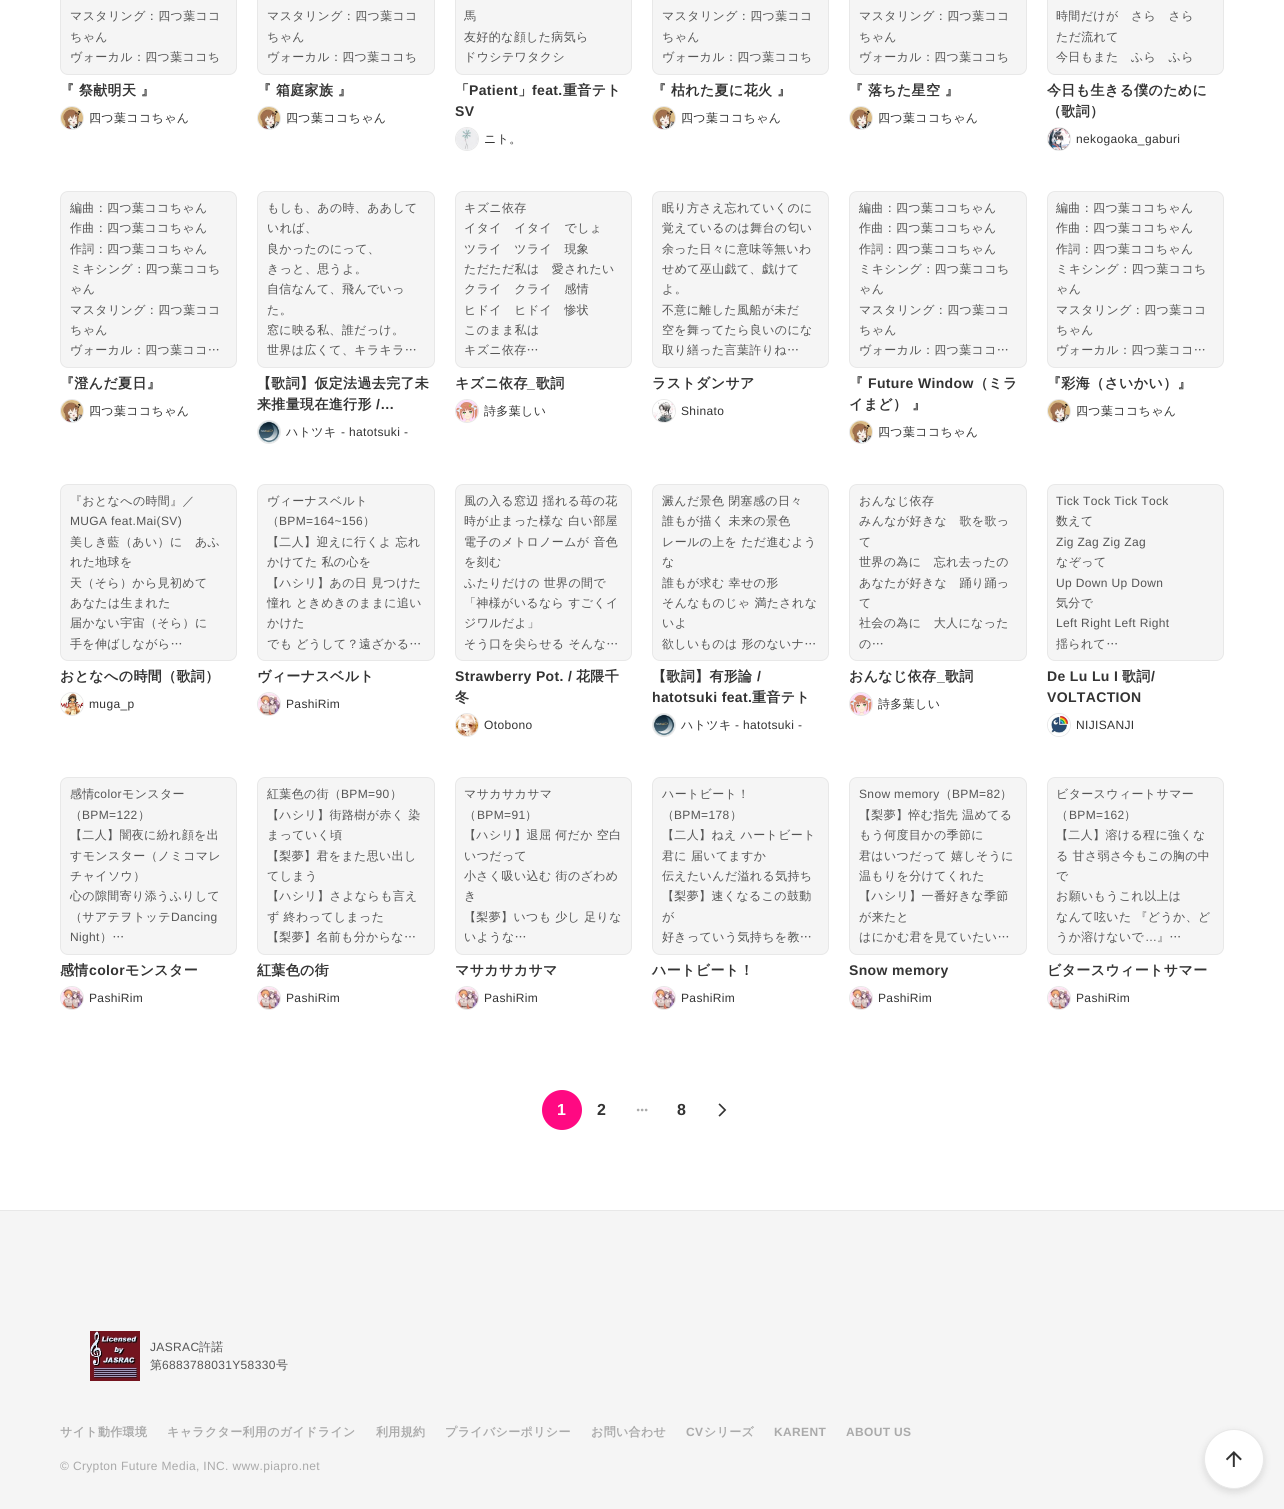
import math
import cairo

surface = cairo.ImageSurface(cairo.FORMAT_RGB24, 1284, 1509)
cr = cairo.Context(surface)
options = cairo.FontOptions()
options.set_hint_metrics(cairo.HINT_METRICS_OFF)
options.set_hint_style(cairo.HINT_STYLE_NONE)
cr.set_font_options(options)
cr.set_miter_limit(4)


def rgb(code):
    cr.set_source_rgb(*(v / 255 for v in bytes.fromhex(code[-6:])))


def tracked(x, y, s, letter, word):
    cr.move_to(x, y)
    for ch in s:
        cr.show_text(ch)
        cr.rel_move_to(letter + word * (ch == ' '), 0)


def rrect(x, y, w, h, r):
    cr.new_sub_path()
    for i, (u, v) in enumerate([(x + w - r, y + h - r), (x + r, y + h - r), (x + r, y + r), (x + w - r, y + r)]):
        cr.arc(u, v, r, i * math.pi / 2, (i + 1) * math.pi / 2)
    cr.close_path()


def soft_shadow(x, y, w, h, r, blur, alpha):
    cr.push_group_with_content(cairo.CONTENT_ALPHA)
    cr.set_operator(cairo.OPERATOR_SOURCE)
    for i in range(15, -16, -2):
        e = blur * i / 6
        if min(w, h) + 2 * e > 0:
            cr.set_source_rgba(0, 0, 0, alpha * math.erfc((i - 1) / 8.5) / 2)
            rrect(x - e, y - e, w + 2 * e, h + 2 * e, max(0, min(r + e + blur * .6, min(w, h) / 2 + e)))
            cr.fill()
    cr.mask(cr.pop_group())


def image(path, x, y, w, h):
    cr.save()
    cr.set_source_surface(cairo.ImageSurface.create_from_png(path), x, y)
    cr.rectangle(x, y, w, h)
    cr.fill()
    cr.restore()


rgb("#f5f5f5")
cr.paint()
rgb("#ffffff")
cr.rectangle(0, 0, 1284, 1210)
cr.fill()
rgb("#e8e8e8")
cr.rectangle(0, 1210, 1284, 1)
cr.fill()
rgb("#f5f5f5")
rrect(60.5, -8.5, 176, 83, 7.5)
cr.fill_preserve()
rgb("#e8e8e8")
cr.set_line_width(1)
cr.stroke()
cr.arc(72, 118, 11.5, 0, 2 * math.pi)
cr.stroke()
image("img/1.png", 61, 107, 22, 22)
rgb("#f5f5f5")
rrect(257.5, -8.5, 177, 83, 7.5)
cr.fill_preserve()
rgb("#e8e8e8")
cr.stroke()
cr.arc(269, 118, 11.5, 0, 2 * math.pi)
cr.stroke()
image("img/2.png", 258, 107, 22, 22)
rgb("#f5f5f5")
rrect(455.5, -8.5, 176, 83, 7.5)
cr.fill_preserve()
rgb("#e8e8e8")
cr.stroke()
cr.arc(467, 139, 11.5, 0, 2 * math.pi)
cr.stroke()
image("img/3.png", 456, 128, 22, 22)
rgb("#f5f5f5")
rrect(652.5, -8.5, 176, 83, 7.5)
cr.fill_preserve()
rgb("#e8e8e8")
cr.stroke()
cr.arc(664, 118, 11.5, 0, 2 * math.pi)
cr.stroke()
image("img/4.png", 653, 107, 22, 22)
rgb("#f5f5f5")
rrect(849.5, -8.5, 177, 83, 7.5)
cr.fill_preserve()
rgb("#e8e8e8")
cr.stroke()
cr.arc(861, 118, 11.5, 0, 2 * math.pi)
cr.stroke()
image("img/5.png", 850, 107, 22, 22)
rgb("#f5f5f5")
rrect(1047.5, -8.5, 176, 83, 7.5)
cr.fill_preserve()
rgb("#e8e8e8")
cr.stroke()
cr.arc(1059, 139, 11.5, 0, 2 * math.pi)
cr.stroke()
image("img/6.png", 1048, 128, 22, 22)
rgb("#f5f5f5")
rrect(60.5, 191.5, 176, 176, 7.5)
cr.fill_preserve()
rgb("#e8e8e8")
cr.stroke()
cr.arc(72, 411, 11.5, 0, 2 * math.pi)
cr.stroke()
image("img/1.png", 61, 400, 22, 22)
rgb("#f5f5f5")
rrect(257.5, 191.5, 177, 176, 7.5)
cr.fill_preserve()
rgb("#e8e8e8")
cr.stroke()
cr.arc(269, 432, 11.5, 0, 2 * math.pi)
cr.stroke()
image("img/7.png", 258, 421, 22, 22)
rgb("#f5f5f5")
rrect(455.5, 191.5, 176, 176, 7.5)
cr.fill_preserve()
rgb("#e8e8e8")
cr.stroke()
cr.arc(467, 411, 11.5, 0, 2 * math.pi)
cr.stroke()
image("img/8.png", 456, 400, 22, 22)
rgb("#f5f5f5")
rrect(652.5, 191.5, 176, 176, 7.5)
cr.fill_preserve()
rgb("#e8e8e8")
cr.stroke()
cr.arc(664, 411, 11.5, 0, 2 * math.pi)
cr.stroke()
image("img/9.png", 653, 400, 22, 22)
rgb("#f5f5f5")
rrect(849.5, 191.5, 177, 176, 7.5)
cr.fill_preserve()
rgb("#e8e8e8")
cr.stroke()
cr.arc(861, 432, 11.5, 0, 2 * math.pi)
cr.stroke()
image("img/10.png", 850, 421, 22, 22)
rgb("#f5f5f5")
rrect(1047.5, 191.5, 176, 176, 7.5)
cr.fill_preserve()
rgb("#e8e8e8")
cr.stroke()
cr.arc(1059, 411, 11.5, 0, 2 * math.pi)
cr.stroke()
image("img/11.png", 1048, 400, 22, 22)
rgb("#f5f5f5")
rrect(60.5, 484.5, 176, 176, 7.5)
cr.fill_preserve()
rgb("#e8e8e8")
cr.stroke()
cr.arc(72, 704, 11.5, 0, 2 * math.pi)
cr.stroke()
image("img/12.png", 61, 693, 22, 22)
rgb("#f5f5f5")
rrect(257.5, 484.5, 177, 176, 7.5)
cr.fill_preserve()
rgb("#e8e8e8")
cr.stroke()
cr.arc(269, 704, 11.5, 0, 2 * math.pi)
cr.stroke()
image("img/13.png", 258, 693, 22, 22)
rgb("#f5f5f5")
rrect(455.5, 484.5, 176, 176, 7.5)
cr.fill_preserve()
rgb("#e8e8e8")
cr.stroke()
cr.arc(467, 725, 11.5, 0, 2 * math.pi)
cr.stroke()
image("img/14.png", 456, 714, 22, 22)
rgb("#f5f5f5")
rrect(652.5, 484.5, 176, 176, 7.5)
cr.fill_preserve()
rgb("#e8e8e8")
cr.stroke()
cr.arc(664, 725, 11.5, 0, 2 * math.pi)
cr.stroke()
image("img/15.png", 653, 714, 22, 22)
rgb("#f5f5f5")
rrect(849.5, 484.5, 177, 176, 7.5)
cr.fill_preserve()
rgb("#e8e8e8")
cr.stroke()
cr.arc(861, 704, 11.5, 0, 2 * math.pi)
cr.stroke()
image("img/16.png", 850, 693, 22, 22)
rgb("#f5f5f5")
rrect(1047.5, 484.5, 176, 176, 7.5)
cr.fill_preserve()
rgb("#e8e8e8")
cr.stroke()
cr.arc(1059, 725, 11.5, 0, 2 * math.pi)
cr.stroke()
image("img/17.png", 1048, 714, 22, 22)
rgb("#f5f5f5")
rrect(60.5, 777.5, 176, 177, 7.5)
cr.fill_preserve()
rgb("#e8e8e8")
cr.stroke()
cr.arc(72, 998, 11.5, 0, 2 * math.pi)
cr.stroke()
image("img/18.png", 61, 987, 22, 22)
rgb("#f5f5f5")
rrect(257.5, 777.5, 177, 177, 7.5)
cr.fill_preserve()
rgb("#e8e8e8")
cr.stroke()
cr.arc(269, 998, 11.5, 0, 2 * math.pi)
cr.stroke()
image("img/19.png", 258, 987, 22, 22)
rgb("#f5f5f5")
rrect(455.5, 777.5, 176, 177, 7.5)
cr.fill_preserve()
rgb("#e8e8e8")
cr.stroke()
cr.arc(467, 998, 11.5, 0, 2 * math.pi)
cr.stroke()
image("img/20.png", 456, 987, 22, 22)
rgb("#f5f5f5")
rrect(652.5, 777.5, 176, 177, 7.5)
cr.fill_preserve()
rgb("#e8e8e8")
cr.stroke()
cr.arc(664, 998, 11.5, 0, 2 * math.pi)
cr.stroke()
image("img/21.png", 653, 987, 22, 22)
rgb("#f5f5f5")
rrect(849.5, 777.5, 177, 177, 7.5)
cr.fill_preserve()
rgb("#e8e8e8")
cr.stroke()
cr.arc(861, 998, 11.5, 0, 2 * math.pi)
cr.stroke()
image("img/22.png", 850, 987, 22, 22)
rgb("#f5f5f5")
rrect(1047.5, 777.5, 176, 177, 7.5)
cr.fill_preserve()
rgb("#e8e8e8")
cr.stroke()
cr.arc(1059, 998, 11.5, 0, 2 * math.pi)
cr.stroke()
image("img/23.png", 1048, 987, 22, 22)
rgb("#ff0982")
cr.arc(562, 1110, 20, 0, 2 * math.pi)
cr.fill()
image("img/24.png", 636, 1108, 12, 4)
image("img/25.png", 718, 1103, 9, 14)
image("img/26.png", 90, 1331, 50, 50)
rgb("#000000")
soft_shadow(1204, 1432, 60, 60, 30, 4, 0.12)
rgb("#ffffff")
cr.arc(1234, 1459, 29.5, 0, 2 * math.pi)
cr.fill_preserve()
rgb("#e8e8e8")
cr.stroke()
image("img/27.png", 1226, 1451, 16, 16)
cr.select_font_face("WenQuanYi Zen Hei Medium")
cr.set_font_size(12)
rgb("#555555")
for x, y, s in [
    (70, 20, "マスタリング：四つ葉ココ"),
    (70, 41, "ちゃん"),
    (70, 61, "ヴォーカル：四つ葉ココち"),
]:
    tracked(x, y, s, 0.35, 0)
cr.select_font_face("WenQuanYi Zen Hei", cairo.FONT_SLANT_NORMAL, cairo.FONT_WEIGHT_BOLD)
cr.set_font_size(14)
rgb("#333333")
tracked(60, 95, "『 祭献明天 』", 0.35, 0)
cr.select_font_face("WenQuanYi Zen Hei Medium")
cr.set_font_size(12)
tracked(89, 122, "四つ葉ココちゃん", 0.35, 0)
rgb("#555555")
for x, y, s in [
    (267, 20, "マスタリング：四つ葉ココ"),
    (267, 41, "ちゃん"),
    (267, 61, "ヴォーカル：四つ葉ココち"),
]:
    tracked(x, y, s, 0.35, 0)
cr.select_font_face("WenQuanYi Zen Hei", cairo.FONT_SLANT_NORMAL, cairo.FONT_WEIGHT_BOLD)
cr.set_font_size(14)
rgb("#333333")
tracked(257, 95, "『 箱庭家族 』", 0.35, 0)
cr.select_font_face("WenQuanYi Zen Hei Medium")
cr.set_font_size(12)
tracked(286, 122, "四つ葉ココちゃん", 0.35, 0)
rgb("#555555")
for x, y, s in [
    (464, 20, "馬"),
    (464, 41, "友好的な顔した病気ら"),
    (464, 61, "ドウシテワタクシ"),
]:
    tracked(x, y, s, 0.35, 0)
cr.select_font_face("WenQuanYi Zen Hei", cairo.FONT_SLANT_NORMAL, cairo.FONT_WEIGHT_BOLD)
cr.set_font_size(14)
rgb("#333333")
tracked(455, 95, "「", 0.35, 0)
cr.select_font_face("Liberation Sans", cairo.FONT_SLANT_NORMAL, cairo.FONT_WEIGHT_BOLD)
tracked(469, 95, "Patient", 0.35, 0)
cr.select_font_face("WenQuanYi Zen Hei", cairo.FONT_SLANT_NORMAL, cairo.FONT_WEIGHT_BOLD)
tracked(518, 95, "」", 0.35, 0)
cr.select_font_face("Liberation Sans", cairo.FONT_SLANT_NORMAL, cairo.FONT_WEIGHT_BOLD)
tracked(532, 95, "feat.", 0.35, 0)
cr.select_font_face("WenQuanYi Zen Hei", cairo.FONT_SLANT_NORMAL, cairo.FONT_WEIGHT_BOLD)
tracked(563, 95, "重音テト", 0.35, 0)
cr.select_font_face("Liberation Sans", cairo.FONT_SLANT_NORMAL, cairo.FONT_WEIGHT_BOLD)
tracked(455, 116, "SV", 0.35, 0)
cr.select_font_face("WenQuanYi Zen Hei Medium")
cr.set_font_size(12)
tracked(484, 143, "ニト。", 0.35, 0)
rgb("#555555")
for x, y, s in [
    (662, 20, "マスタリング：四つ葉ココ"),
    (662, 41, "ちゃん"),
    (662, 61, "ヴォーカル：四つ葉ココち"),
]:
    tracked(x, y, s, 0.35, 0)
cr.select_font_face("WenQuanYi Zen Hei", cairo.FONT_SLANT_NORMAL, cairo.FONT_WEIGHT_BOLD)
cr.set_font_size(14)
rgb("#333333")
tracked(652, 95, "『 枯れた夏に花火 』", 0.35, 0)
cr.select_font_face("WenQuanYi Zen Hei Medium")
cr.set_font_size(12)
tracked(681, 122, "四つ葉ココちゃん", 0.35, 0)
rgb("#555555")
for x, y, s in [
    (859, 20, "マスタリング：四つ葉ココ"),
    (859, 41, "ちゃん"),
    (859, 61, "ヴォーカル：四つ葉ココち"),
]:
    tracked(x, y, s, 0.35, 0)
cr.select_font_face("WenQuanYi Zen Hei", cairo.FONT_SLANT_NORMAL, cairo.FONT_WEIGHT_BOLD)
cr.set_font_size(14)
rgb("#333333")
tracked(849, 95, "『 落ちた星空 』", 0.35, 0)
cr.select_font_face("WenQuanYi Zen Hei Medium")
cr.set_font_size(12)
tracked(878, 122, "四つ葉ココちゃん", 0.35, 0)
rgb("#555555")
for x, y, s in [
    (1056, 20, "時間だけが　さら　さら"),
    (1056, 41, "ただ流れて"),
    (1056, 61, "今日もまた　ふら　ふら"),
]:
    tracked(x, y, s, 0.35, 0)
cr.select_font_face("WenQuanYi Zen Hei", cairo.FONT_SLANT_NORMAL, cairo.FONT_WEIGHT_BOLD)
cr.set_font_size(14)
rgb("#333333")
tracked(1047, 95, "今日も生きる僕のために", 0.35, 0)
tracked(1047, 116, "（歌詞）", 0.35, 0)
cr.select_font_face("Liberation Sans")
cr.set_font_size(12)
tracked(1076, 143, "nekogaoka_gaburi", 0.35, 0)
cr.select_font_face("WenQuanYi Zen Hei Medium")
rgb("#555555")
for x, y, s in [
    (70, 212, "編曲：四つ葉ココちゃん"),
    (70, 232, "作曲：四つ葉ココちゃん"),
    (70, 253, "作詞：四つ葉ココちゃん"),
    (70, 273, "ミキシング：四つ葉ココち"),
    (70, 293, "ゃん"),
    (70, 314, "マスタリング：四つ葉ココ"),
    (70, 334, "ちゃん"),
    (70, 354, "ヴォーカル：四つ葉ココ…"),
]:
    tracked(x, y, s, 0.35, 0)
cr.select_font_face("WenQuanYi Zen Hei", cairo.FONT_SLANT_NORMAL, cairo.FONT_WEIGHT_BOLD)
cr.set_font_size(14)
rgb("#333333")
tracked(60, 388, "『澄んだ夏日』", 0.35, 0)
cr.select_font_face("WenQuanYi Zen Hei Medium")
cr.set_font_size(12)
tracked(89, 415, "四つ葉ココちゃん", 0.35, 0)
rgb("#555555")
for x, y, s in [
    (267, 212, "もしも、あの時、ああして"),
    (267, 232, "いれば、"),
    (267, 253, "良かったのにって、"),
    (267, 273, "きっと、思うよ。"),
    (267, 293, "自信なんて、飛んでいっ"),
    (267, 314, "た。"),
    (267, 334, "窓に映る私、誰だっけ。"),
    (267, 354, "世界は広くて、キラキラ…"),
]:
    tracked(x, y, s, 0.35, 0)
cr.select_font_face("WenQuanYi Zen Hei", cairo.FONT_SLANT_NORMAL, cairo.FONT_WEIGHT_BOLD)
cr.set_font_size(14)
rgb("#333333")
tracked(257, 388, "【歌詞】仮定法過去完了未", 0.35, 0)
tracked(257, 409, "来推量現在進行形", 0.35, 0)
cr.select_font_face("Liberation Sans", cairo.FONT_SLANT_NORMAL, cairo.FONT_WEIGHT_BOLD)
tracked(376, 409, "/…", 0.35, 0)
cr.select_font_face("WenQuanYi Zen Hei Medium")
cr.set_font_size(12)
tracked(286, 436, "ハトツキ", 0.35, 0)
cr.select_font_face("Liberation Sans")
tracked(341, 436, "- hatotsuki -", 0.35, 0)
cr.select_font_face("WenQuanYi Zen Hei Medium")
rgb("#555555")
for x, y, s in [
    (464, 212, "キズニ依存"),
    (464, 232, "イタイ　イタイ　でしょ"),
    (464, 253, "ツライ　ツライ　現象"),
    (464, 273, "ただただ私は　愛されたい"),
    (464, 293, "クライ　クライ　感情"),
    (464, 314, "ヒドイ　ヒドイ　惨状"),
    (464, 334, "このまま私は"),
    (464, 354, "キズニ依存…"),
]:
    tracked(x, y, s, 0.35, 0)
cr.select_font_face("WenQuanYi Zen Hei", cairo.FONT_SLANT_NORMAL, cairo.FONT_WEIGHT_BOLD)
cr.set_font_size(14)
rgb("#333333")
tracked(455, 388, "キズニ依存", 0.35, 0)
cr.select_font_face("Liberation Sans", cairo.FONT_SLANT_NORMAL, cairo.FONT_WEIGHT_BOLD)
tracked(527, 388, "_", 0.35, 0)
cr.select_font_face("WenQuanYi Zen Hei", cairo.FONT_SLANT_NORMAL, cairo.FONT_WEIGHT_BOLD)
tracked(536, 388, "歌詞", 0.35, 0)
cr.select_font_face("WenQuanYi Zen Hei Medium")
cr.set_font_size(12)
tracked(484, 415, "詩多葉しい", 0.35, 0)
rgb("#555555")
for x, y, s in [
    (662, 212, "眠り方さえ忘れていくのに"),
    (662, 232, "覚えているのは舞台の匂い"),
    (662, 253, "余った日々に意味等無いわ"),
    (662, 273, "せめて巫山戯て、戯けて"),
    (662, 293, "よ。"),
    (662, 314, "不意に離した風船が未だ"),
    (662, 334, "空を舞ってたら良いのにな"),
    (662, 354, "取り繕った言葉許りね…"),
]:
    tracked(x, y, s, 0.35, 0)
cr.select_font_face("WenQuanYi Zen Hei", cairo.FONT_SLANT_NORMAL, cairo.FONT_WEIGHT_BOLD)
cr.set_font_size(14)
rgb("#333333")
tracked(652, 388, "ラストダンサア", 0.35, 0)
cr.select_font_face("Liberation Sans")
cr.set_font_size(12)
tracked(681, 415, "Shinato", 0.35, 0)
cr.select_font_face("WenQuanYi Zen Hei Medium")
rgb("#555555")
for x, y, s in [
    (859, 212, "編曲：四つ葉ココちゃん"),
    (859, 232, "作曲：四つ葉ココちゃん"),
    (859, 253, "作詞：四つ葉ココちゃん"),
    (859, 273, "ミキシング：四つ葉ココち"),
    (859, 293, "ゃん"),
    (859, 314, "マスタリング：四つ葉ココ"),
    (859, 334, "ちゃん"),
    (859, 354, "ヴォーカル：四つ葉ココ…"),
]:
    tracked(x, y, s, 0.35, 0)
cr.select_font_face("WenQuanYi Zen Hei", cairo.FONT_SLANT_NORMAL, cairo.FONT_WEIGHT_BOLD)
cr.set_font_size(14)
rgb("#333333")
tracked(849, 388, "『", 0.35, 0)
cr.select_font_face("Liberation Sans", cairo.FONT_SLANT_NORMAL, cairo.FONT_WEIGHT_BOLD)
tracked(868, 388, "Future Window", 0.35, 0)
cr.select_font_face("WenQuanYi Zen Hei", cairo.FONT_SLANT_NORMAL, cairo.FONT_WEIGHT_BOLD)
tracked(974, 388, "（ミラ", 0.35, 0)
tracked(849, 409, "イまど） 』", 0.35, 0)
cr.select_font_face("WenQuanYi Zen Hei Medium")
cr.set_font_size(12)
tracked(878, 436, "四つ葉ココちゃん", 0.35, 0)
rgb("#555555")
for x, y, s in [
    (1056, 212, "編曲：四つ葉ココちゃん"),
    (1056, 232, "作曲：四つ葉ココちゃん"),
    (1056, 253, "作詞：四つ葉ココちゃん"),
    (1056, 273, "ミキシング：四つ葉ココち"),
    (1056, 293, "ゃん"),
    (1056, 314, "マスタリング：四つ葉ココ"),
    (1056, 334, "ちゃん"),
    (1056, 354, "ヴォーカル：四つ葉ココ…"),
]:
    tracked(x, y, s, 0.35, 0)
cr.select_font_face("WenQuanYi Zen Hei", cairo.FONT_SLANT_NORMAL, cairo.FONT_WEIGHT_BOLD)
cr.set_font_size(14)
rgb("#333333")
tracked(1047, 388, "『彩海（さいかい）』", 0.35, 0)
cr.select_font_face("WenQuanYi Zen Hei Medium")
cr.set_font_size(12)
tracked(1076, 415, "四つ葉ココちゃん", 0.35, 0)
rgb("#555555")
tracked(70, 505, "『おとなへの時間』／", 0.35, 0)
cr.select_font_face("Liberation Sans")
tracked(70, 525, "MUGA feat.Mai(SV)", 0.35, 0)
cr.select_font_face("WenQuanYi Zen Hei Medium")
for x, y, s in [
    (70, 546, "美しき藍（あい）に　あふ"),
    (70, 566, "れた地球を"),
    (70, 587, "天（そら）から見初めて"),
    (70, 607, "あなたは生まれた"),
    (70, 627, "届かない宇宙（そら）に"),
    (70, 648, "手を伸ばしながら…"),
]:
    tracked(x, y, s, 0.35, 0)
cr.select_font_face("WenQuanYi Zen Hei", cairo.FONT_SLANT_NORMAL, cairo.FONT_WEIGHT_BOLD)
cr.set_font_size(14)
rgb("#333333")
tracked(60, 681, "おとなへの時間（歌詞）", 0.35, 0)
cr.select_font_face("Liberation Sans")
cr.set_font_size(12)
tracked(89, 708, "muga_p", 0.35, 0)
cr.select_font_face("WenQuanYi Zen Hei Medium")
rgb("#555555")
tracked(267, 505, "ヴィーナスベルト", 0.35, 0)
tracked(267, 525, "（", 0.35, 0)
cr.select_font_face("Liberation Sans")
tracked(279, 525, "BPM=164~156", 0.35, 0)
cr.select_font_face("WenQuanYi Zen Hei Medium")
for x, y, s in [
    (363, 525, "）"),
    (267, 546, "【二人】迎えに行くよ 忘れ"),
    (267, 566, "かけてた 私の心を"),
    (267, 587, "【ハシリ】あの日 見つけた"),
    (267, 607, "憧れ ときめきのままに追い"),
    (267, 627, "かけた"),
    (267, 648, "でも どうして？遠ざかる…"),
]:
    tracked(x, y, s, 0.35, 0)
cr.select_font_face("WenQuanYi Zen Hei", cairo.FONT_SLANT_NORMAL, cairo.FONT_WEIGHT_BOLD)
cr.set_font_size(14)
rgb("#333333")
tracked(257, 681, "ヴィーナスベルト", 0.35, 0)
cr.select_font_face("Liberation Sans")
cr.set_font_size(12)
tracked(286, 708, "PashiRim", 0.35, 0)
cr.select_font_face("WenQuanYi Zen Hei Medium")
rgb("#555555")
for x, y, s in [
    (464, 505, "風の入る窓辺 揺れる苺の花"),
    (464, 525, "時が止まった様な 白い部屋"),
    (464, 546, "電子のメトロノームが 音色"),
    (464, 566, "を刻む"),
    (464, 587, "ふたりだけの 世界の間で"),
    (464, 607, "「神様がいるなら すごくイ"),
    (464, 627, "ジワルだよ」"),
    (464, 648, "そう口を尖らせる そんな…"),
]:
    tracked(x, y, s, 0.35, 0)
cr.select_font_face("Liberation Sans", cairo.FONT_SLANT_NORMAL, cairo.FONT_WEIGHT_BOLD)
cr.set_font_size(14)
rgb("#333333")
tracked(455, 681, "Strawberry Pot. /", 0.35, 0)
cr.select_font_face("WenQuanYi Zen Hei", cairo.FONT_SLANT_NORMAL, cairo.FONT_WEIGHT_BOLD)
tracked(576, 681, "花隈千", 0.35, 0)
tracked(455, 702, "冬", 0.35, 0)
cr.select_font_face("Liberation Sans")
cr.set_font_size(12)
tracked(484, 729, "Otobono", 0.35, 0)
cr.select_font_face("WenQuanYi Zen Hei Medium")
rgb("#555555")
for x, y, s in [
    (662, 505, "澱んだ景色 閉塞感の日々"),
    (662, 525, "誰もが描く 未来の景色"),
    (662, 546, "レールの上を ただ進むよう"),
    (662, 566, "な"),
    (662, 587, "誰もが求む 幸せの形"),
    (662, 607, "そんなものじゃ 満たされな"),
    (662, 627, "いよ"),
    (662, 648, "欲しいものは 形のないナ…"),
]:
    tracked(x, y, s, 0.35, 0)
cr.select_font_face("WenQuanYi Zen Hei", cairo.FONT_SLANT_NORMAL, cairo.FONT_WEIGHT_BOLD)
cr.set_font_size(14)
rgb("#333333")
tracked(652, 681, "【歌詞】有形論", 0.35, 0)
cr.select_font_face("Liberation Sans", cairo.FONT_SLANT_NORMAL, cairo.FONT_WEIGHT_BOLD)
tracked(757, 681, "/", 0.35, 0)
tracked(652, 702, "hatotsuki feat.", 0.35, 0)
cr.select_font_face("WenQuanYi Zen Hei", cairo.FONT_SLANT_NORMAL, cairo.FONT_WEIGHT_BOLD)
tracked(752, 702, "重音テト", 0.35, 0)
cr.select_font_face("WenQuanYi Zen Hei Medium")
cr.set_font_size(12)
tracked(681, 729, "ハトツキ", 0.35, 0)
cr.select_font_face("Liberation Sans")
tracked(735, 729, "- hatotsuki -", 0.35, 0)
cr.select_font_face("WenQuanYi Zen Hei Medium")
rgb("#555555")
for x, y, s in [
    (859, 505, "おんなじ依存"),
    (859, 525, "みんなが好きな　歌を歌っ"),
    (859, 546, "て"),
    (859, 566, "世界の為に　忘れ去ったの"),
    (859, 587, "あなたが好きな　踊り踊っ"),
    (859, 607, "て"),
    (859, 627, "社会の為に　大人になった"),
    (859, 648, "の…"),
]:
    tracked(x, y, s, 0.35, 0)
cr.select_font_face("WenQuanYi Zen Hei", cairo.FONT_SLANT_NORMAL, cairo.FONT_WEIGHT_BOLD)
cr.set_font_size(14)
rgb("#333333")
tracked(849, 681, "おんなじ依存", 0.35, 0)
cr.select_font_face("Liberation Sans", cairo.FONT_SLANT_NORMAL, cairo.FONT_WEIGHT_BOLD)
tracked(937, 681, "_", 0.35, 0)
cr.select_font_face("WenQuanYi Zen Hei", cairo.FONT_SLANT_NORMAL, cairo.FONT_WEIGHT_BOLD)
tracked(945, 681, "歌詞", 0.35, 0)
cr.select_font_face("WenQuanYi Zen Hei Medium")
cr.set_font_size(12)
tracked(878, 708, "詩多葉しい", 0.35, 0)
cr.select_font_face("Liberation Sans")
rgb("#555555")
tracked(1056, 505, "Tick Tock Tick Tock", 0.35, 0)
cr.select_font_face("WenQuanYi Zen Hei Medium")
tracked(1056, 525, "数えて", 0.35, 0)
cr.select_font_face("Liberation Sans")
tracked(1056, 546, "Zig Zag Zig Zag", 0.35, 0)
cr.select_font_face("WenQuanYi Zen Hei Medium")
tracked(1056, 566, "なぞって", 0.35, 0)
cr.select_font_face("Liberation Sans")
tracked(1056, 587, "Up Down Up Down", 0.35, 0)
cr.select_font_face("WenQuanYi Zen Hei Medium")
tracked(1056, 607, "気分で", 0.35, 0)
cr.select_font_face("Liberation Sans")
tracked(1056, 627, "Left Right Left Right", 0.35, 0)
cr.select_font_face("WenQuanYi Zen Hei Medium")
tracked(1056, 648, "揺られて…", 0.35, 0)
cr.select_font_face("Liberation Sans", cairo.FONT_SLANT_NORMAL, cairo.FONT_WEIGHT_BOLD)
cr.set_font_size(14)
rgb("#333333")
tracked(1047, 681, "De Lu Lu I", 0.35, 0)
cr.select_font_face("WenQuanYi Zen Hei", cairo.FONT_SLANT_NORMAL, cairo.FONT_WEIGHT_BOLD)
tracked(1122, 681, "歌詞", 0.35, 0)
cr.select_font_face("Liberation Sans", cairo.FONT_SLANT_NORMAL, cairo.FONT_WEIGHT_BOLD)
tracked(1151, 681, "/", 0.35, 0)
tracked(1047, 702, "VOLTACTION", 0.35, 0)
cr.select_font_face("Liberation Sans")
cr.set_font_size(12)
tracked(1076, 729, "NIJISANJI", 0.35, 0)
cr.select_font_face("WenQuanYi Zen Hei Medium")
rgb("#555555")
tracked(70, 798, "感情", 0.35, 0)
cr.select_font_face("Liberation Sans")
tracked(94, 798, "color", 0.35, 0)
cr.select_font_face("WenQuanYi Zen Hei Medium")
tracked(122, 798, "モンスター", 0.35, 0)
tracked(70, 819, "（", 0.35, 0)
cr.select_font_face("Liberation Sans")
tracked(82, 819, "BPM=122", 0.35, 0)
cr.select_font_face("WenQuanYi Zen Hei Medium")
for x, y, s in [
    (138, 819, "）"),
    (70, 839, "【二人】闇夜に紛れ顔を出"),
    (70, 860, "すモンスター（ノミコマレ"),
    (70, 880, "チャイソウ）"),
    (70, 900, "心の隙間寄り添うふりして"),
    (70, 921, "（サアテヲトッテ"),
]:
    tracked(x, y, s, 0.35, 0)
cr.select_font_face("Liberation Sans")
tracked(171, 921, "Dancing", 0.35, 0)
tracked(70, 941, "Night", 0.35, 0)
cr.select_font_face("WenQuanYi Zen Hei Medium")
tracked(100, 941, "）…", 0.35, 0)
cr.select_font_face("WenQuanYi Zen Hei", cairo.FONT_SLANT_NORMAL, cairo.FONT_WEIGHT_BOLD)
cr.set_font_size(14)
rgb("#333333")
tracked(60, 975, "感情", 0.35, 0)
cr.select_font_face("Liberation Sans", cairo.FONT_SLANT_NORMAL, cairo.FONT_WEIGHT_BOLD)
tracked(89, 975, "color", 0.35, 0)
cr.select_font_face("WenQuanYi Zen Hei", cairo.FONT_SLANT_NORMAL, cairo.FONT_WEIGHT_BOLD)
tracked(125, 975, "モンスター", 0.35, 0)
cr.select_font_face("Liberation Sans")
cr.set_font_size(12)
tracked(89, 1002, "PashiRim", 0.35, 0)
cr.select_font_face("WenQuanYi Zen Hei Medium")
rgb("#555555")
tracked(267, 798, "紅葉色の街（", 0.35, 0)
cr.select_font_face("Liberation Sans")
tracked(341, 798, "BPM=90", 0.35, 0)
cr.select_font_face("WenQuanYi Zen Hei Medium")
for x, y, s in [
    (390, 798, "）"),
    (267, 819, "【ハシリ】街路樹が赤く 染"),
    (267, 839, "まっていく頃"),
    (267, 860, "【梨夢】君をまた思い出し"),
    (267, 880, "てしまう"),
    (267, 900, "【ハシリ】さよならも言え"),
    (267, 921, "ず 終わってしまった"),
    (267, 941, "【梨夢】名前も分からな…"),
]:
    tracked(x, y, s, 0.35, 0)
cr.select_font_face("WenQuanYi Zen Hei", cairo.FONT_SLANT_NORMAL, cairo.FONT_WEIGHT_BOLD)
cr.set_font_size(14)
rgb("#333333")
tracked(257, 975, "紅葉色の街", 0.35, 0)
cr.select_font_face("Liberation Sans")
cr.set_font_size(12)
tracked(286, 1002, "PashiRim", 0.35, 0)
cr.select_font_face("WenQuanYi Zen Hei Medium")
rgb("#555555")
tracked(464, 798, "マサカサカサマ", 0.35, 0)
tracked(464, 819, "（", 0.35, 0)
cr.select_font_face("Liberation Sans")
tracked(477, 819, "BPM=91", 0.35, 0)
cr.select_font_face("WenQuanYi Zen Hei Medium")
for x, y, s in [
    (525, 819, "）"),
    (464, 839, "【ハシリ】退屈 何だか 空白"),
    (464, 860, "いつだって"),
    (464, 880, "小さく吸い込む 街のざわめ"),
    (464, 900, "き"),
    (464, 921, "【梨夢】いつも 少し 足りな"),
    (464, 941, "いような…"),
]:
    tracked(x, y, s, 0.35, 0)
cr.select_font_face("WenQuanYi Zen Hei", cairo.FONT_SLANT_NORMAL, cairo.FONT_WEIGHT_BOLD)
cr.set_font_size(14)
rgb("#333333")
tracked(455, 975, "マサカサカサマ", 0.35, 0)
cr.select_font_face("Liberation Sans")
cr.set_font_size(12)
tracked(484, 1002, "PashiRim", 0.35, 0)
cr.select_font_face("WenQuanYi Zen Hei Medium")
rgb("#555555")
tracked(662, 798, "ハートビート！", 0.35, 0)
tracked(662, 819, "（", 0.35, 0)
cr.select_font_face("Liberation Sans")
tracked(674, 819, "BPM=178", 0.35, 0)
cr.select_font_face("WenQuanYi Zen Hei Medium")
for x, y, s in [
    (730, 819, "）"),
    (662, 839, "【二人】ねえ ハートビート"),
    (662, 860, "君に 届いてますか"),
    (662, 880, "伝えたいんだ溢れる気持ち"),
    (662, 900, "【梨夢】速くなるこの鼓動"),
    (662, 921, "が"),
    (662, 941, "好きっていう気持ちを教…"),
]:
    tracked(x, y, s, 0.35, 0)
cr.select_font_face("WenQuanYi Zen Hei", cairo.FONT_SLANT_NORMAL, cairo.FONT_WEIGHT_BOLD)
cr.set_font_size(14)
rgb("#333333")
tracked(652, 975, "ハートビート！", 0.35, 0)
cr.select_font_face("Liberation Sans")
cr.set_font_size(12)
tracked(681, 1002, "PashiRim", 0.35, 0)
rgb("#555555")
tracked(859, 798, "Snow memory", 0.35, 0)
cr.select_font_face("WenQuanYi Zen Hei Medium")
tracked(940, 798, "（", 0.35, 0)
cr.select_font_face("Liberation Sans")
tracked(952, 798, "BPM=82", 0.35, 0)
cr.select_font_face("WenQuanYi Zen Hei Medium")
for x, y, s in [
    (1000, 798, "）"),
    (859, 819, "【梨夢】悴む指先 温めてる"),
    (859, 839, "もう何度目かの季節に"),
    (859, 860, "君はいつだって 嬉しそうに"),
    (859, 880, "温もりを分けてくれた"),
    (859, 900, "【ハシリ】一番好きな季節"),
    (859, 921, "が来たと"),
    (859, 941, "はにかむ君を見ていたい…"),
]:
    tracked(x, y, s, 0.35, 0)
cr.select_font_face("Liberation Sans", cairo.FONT_SLANT_NORMAL, cairo.FONT_WEIGHT_BOLD)
cr.set_font_size(14)
rgb("#333333")
tracked(849, 975, "Snow memory", 0.35, 0)
cr.select_font_face("Liberation Sans")
cr.set_font_size(12)
tracked(878, 1002, "PashiRim", 0.35, 0)
cr.select_font_face("WenQuanYi Zen Hei Medium")
rgb("#555555")
tracked(1056, 798, "ビタースウィートサマー", 0.35, 0)
tracked(1056, 819, "（", 0.35, 0)
cr.select_font_face("Liberation Sans")
tracked(1069, 819, "BPM=162", 0.35, 0)
cr.select_font_face("WenQuanYi Zen Hei Medium")
for x, y, s in [
    (1124, 819, "）"),
    (1056, 839, "【二人】溶ける程に強くな"),
    (1056, 860, "る 甘さ弱さ今もこの胸の中"),
    (1056, 880, "で"),
    (1056, 900, "お願いもうこれ以上は"),
    (1056, 921, "なんて呟いた 『どうか、ど"),
    (1056, 941, "うか溶けないで"),
]:
    tracked(x, y, s, 0.35, 0)
cr.select_font_face("Liberation Sans")
tracked(1145, 941, "…", 0.35, 0)
cr.select_font_face("WenQuanYi Zen Hei Medium")
tracked(1157, 941, "』…", 0.35, 0)
cr.select_font_face("WenQuanYi Zen Hei", cairo.FONT_SLANT_NORMAL, cairo.FONT_WEIGHT_BOLD)
cr.set_font_size(14)
rgb("#333333")
tracked(1047, 975, "ビタースウィートサマー", 0.35, 0)
cr.select_font_face("Liberation Sans")
cr.set_font_size(12)
tracked(1076, 1002, "PashiRim", 0.35, 0)
cr.select_font_face("Liberation Sans", cairo.FONT_SLANT_NORMAL, cairo.FONT_WEIGHT_BOLD)
cr.set_font_size(16)
rgb("#ffffff")
tracked(557, 1115, "1", 0.35, 0)
rgb("#333333")
tracked(597, 1115, "2", 0.35, 0)
tracked(677, 1115, "8", 0.35, 0)
cr.select_font_face("Liberation Sans")
cr.set_font_size(12)
rgb("#555555")
tracked(150, 1351, "JASRAC", 0.35, 0)
cr.select_font_face("WenQuanYi Zen Hei Medium")
tracked(199, 1351, "許諾", 0.35, 0)
tracked(150, 1369, "第", 0.35, 0)
cr.select_font_face("Liberation Sans")
tracked(162, 1369, "6883788031Y58330", 0.35, 0)
cr.select_font_face("WenQuanYi Zen Hei Medium")
tracked(276, 1369, "号", 0.35, 0)
cr.select_font_face("WenQuanYi Zen Hei", cairo.FONT_SLANT_NORMAL, cairo.FONT_WEIGHT_BOLD)
rgb("#aaaaaa")
for x, y, s in [
    (60, 1436, "サイト動作環境"),
    (167, 1436, "キャラクター利用のガイドライン"),
    (376, 1436, "利用規約"),
    (445, 1436, "プライバシーポリシー"),
    (591, 1436, "お問い合わせ"),
]:
    tracked(x, y, s, 0.35, 0)
cr.select_font_face("Liberation Sans", cairo.FONT_SLANT_NORMAL, cairo.FONT_WEIGHT_BOLD)
tracked(686, 1436, "CV", 0.35, 0)
cr.select_font_face("WenQuanYi Zen Hei", cairo.FONT_SLANT_NORMAL, cairo.FONT_WEIGHT_BOLD)
tracked(704, 1436, "シリーズ", 0.35, 0)
cr.select_font_face("Liberation Sans", cairo.FONT_SLANT_NORMAL, cairo.FONT_WEIGHT_BOLD)
tracked(774, 1436, "KARENT", 0.35, 0)
tracked(846, 1436, "ABOUT US", 0.35, 0)
cr.select_font_face("Liberation Sans")
tracked(60, 1470, "© Crypton Future Media, INC. www.piapro.net", 0.35, 0)
surface.write_to_png("page.png")
